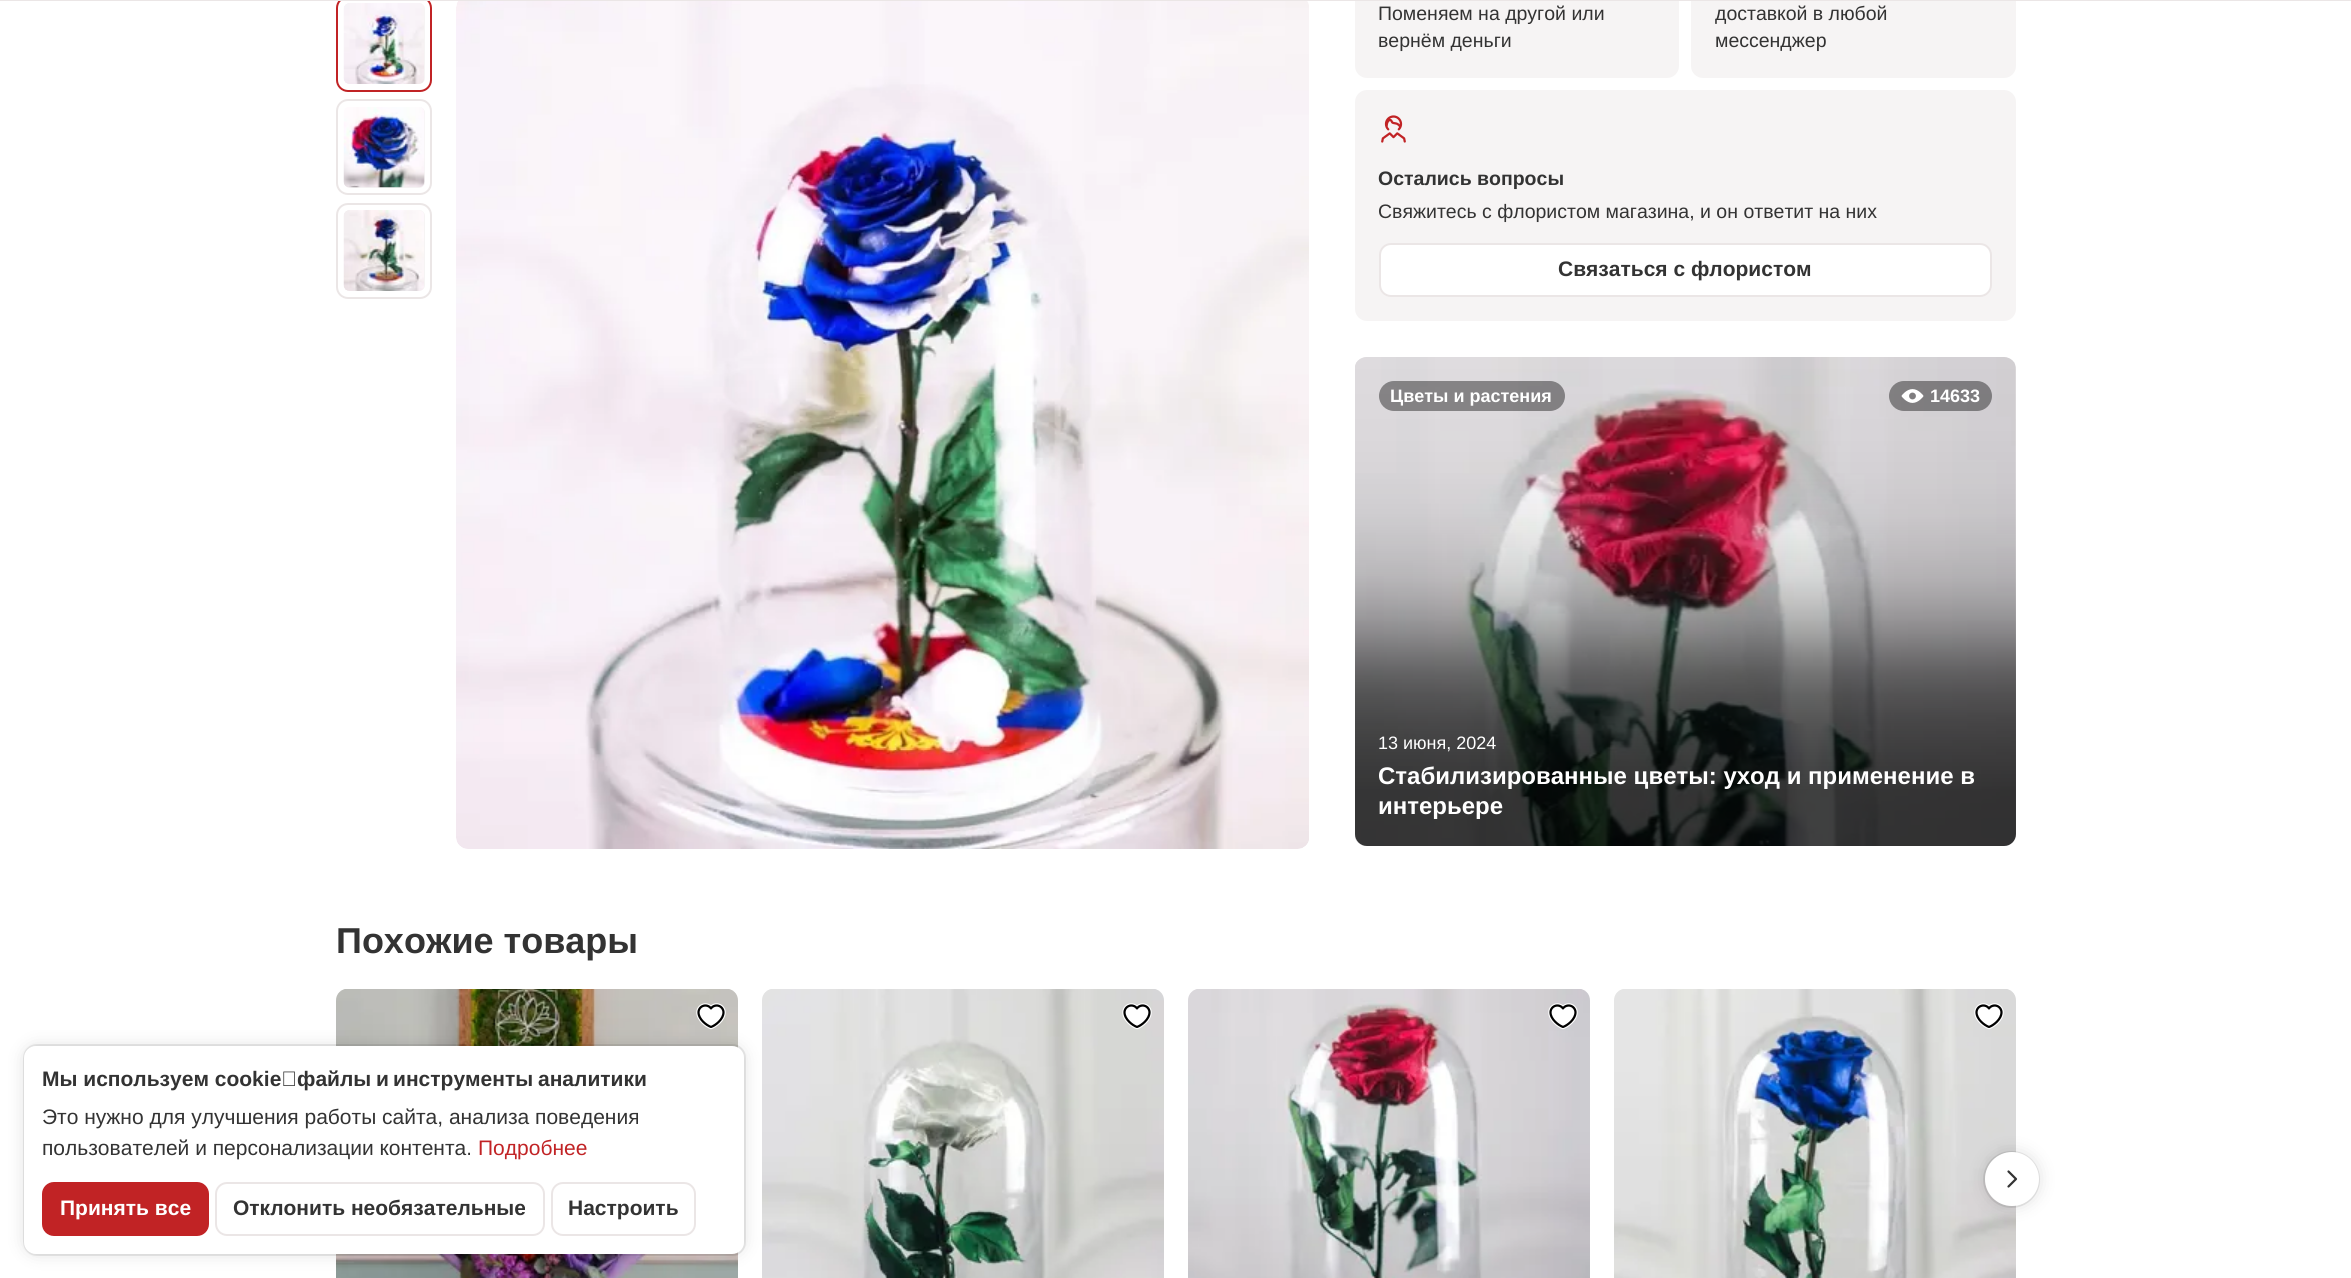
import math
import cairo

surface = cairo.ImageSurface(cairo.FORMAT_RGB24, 2351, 1278)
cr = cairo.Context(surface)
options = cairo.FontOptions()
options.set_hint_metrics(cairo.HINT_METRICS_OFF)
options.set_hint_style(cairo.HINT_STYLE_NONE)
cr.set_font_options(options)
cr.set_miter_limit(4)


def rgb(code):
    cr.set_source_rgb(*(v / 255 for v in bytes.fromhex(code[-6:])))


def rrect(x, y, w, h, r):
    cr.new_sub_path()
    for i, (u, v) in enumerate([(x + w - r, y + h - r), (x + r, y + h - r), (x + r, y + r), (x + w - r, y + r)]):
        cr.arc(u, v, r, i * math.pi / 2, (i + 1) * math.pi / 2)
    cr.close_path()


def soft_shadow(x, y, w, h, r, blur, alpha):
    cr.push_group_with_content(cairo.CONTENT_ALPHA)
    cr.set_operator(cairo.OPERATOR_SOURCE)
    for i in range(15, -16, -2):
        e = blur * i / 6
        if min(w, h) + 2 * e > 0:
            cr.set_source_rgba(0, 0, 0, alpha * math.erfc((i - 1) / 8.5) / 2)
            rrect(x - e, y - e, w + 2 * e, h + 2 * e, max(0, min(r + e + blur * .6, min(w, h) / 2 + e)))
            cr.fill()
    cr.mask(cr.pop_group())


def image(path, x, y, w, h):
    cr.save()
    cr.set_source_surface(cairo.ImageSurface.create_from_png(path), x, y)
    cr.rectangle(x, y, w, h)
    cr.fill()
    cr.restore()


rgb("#ffffff")
cr.paint()
rrect(337, -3, 94, 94, 11)
rgb("#c12325")
cr.stroke()
rgb("#f6f4f4")
rrect(1355, -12, 324, 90, 12)
cr.fill()
rrect(1691, -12, 325, 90, 12)
cr.fill()
rgb("#ebe6e6")
cr.rectangle(0, 0, 2351, 1)
cr.fill()
rgb("#f6f4f4")
rrect(344, 3, 81, 81, 6)
cr.fill()
image("img/1.png", 343, 3, 81, 81)
rrect(337, 100, 94, 94, 11)
rgb("#ebe6e6")
cr.stroke()
rgb("#f6f4f4")
rrect(344, 107, 81, 81, 6)
cr.fill()
image("img/2.png", 343, 107, 82, 81)
rrect(337, 204, 94, 94, 11)
rgb("#ebe6e6")
cr.stroke()
rgb("#f6f4f4")
rrect(344, 210, 81, 81, 6)
cr.fill()
image("img/3.png", 343, 210, 81, 81)
image("img/4.png", 456, 1, 853, 848)
rrect(1355, 90, 661, 231, 12)
cr.fill()
image("img/5.png", 1381, 115, 25, 28)
rgb("#ffffff")
rrect(1380, 244, 611, 52, 11)
cr.fill_preserve()
rgb("#ebe6e6")
cr.stroke()
rgb("#f6f4f4")
rrect(1355, 357, 661, 489, 12)
cr.fill()
image("img/6.png", 1355, 357, 661, 489)
gradient = cairo.LinearGradient(1685, 357, 1685, 846)
gradient.add_color_stop_rgba(0, 0, 0, 0, 0)
gradient.add_color_stop_rgba(0.13, 0, 0, 0, 0.01)
gradient.add_color_stop_rgba(0.24, 0, 0, 0, 0.03)
gradient.add_color_stop_rgba(0.32, 0, 0, 0, 0.06)
gradient.add_color_stop_rgba(0.39, 0, 0, 0, 0.11)
gradient.add_color_stop_rgba(0.45, 0, 0, 0, 0.16)
gradient.add_color_stop_rgba(0.49, 0, 0, 0, 0.22)
gradient.add_color_stop_rgba(0.53, 0, 0, 0, 0.29)
gradient.add_color_stop_rgba(0.56, 0, 0, 0, 0.35)
gradient.add_color_stop_rgba(0.59, 0, 0, 0, 0.42)
gradient.add_color_stop_rgba(0.62, 0, 0, 0, 0.49)
gradient.add_color_stop_rgba(0.65, 0, 0, 0, 0.55)
gradient.add_color_stop_rgba(0.69, 0, 0, 0, 0.61)
gradient.add_color_stop_rgba(0.75, 0, 0, 0, 0.67)
gradient.add_color_stop_rgba(0.81, 0, 0, 0, 0.71)
gradient.add_color_stop_rgba(0.89, 0, 0, 0, 0.75)
cr.set_source(gradient)
rrect(1355, 357, 661, 489, 12)
cr.fill()
cr.set_source_rgba(0, 0, 0, 0.4)
rrect(1889, 381, 103, 30, 15)
cr.fill()
image("img/7.png", 1901, 389, 23, 14)
rrect(1379, 381, 186, 30, 15)
cr.fill()
image("img/8.png", 336, 989, 402, 289)
image("img/9.png", 696, 1003, 30, 27)
image("img/10.png", 697, 1004, 28, 24)
image("img/11.png", 762, 989, 402, 289)
image("img/12.png", 1122, 1003, 30, 27)
image("img/13.png", 1123, 1004, 28, 24)
image("img/14.png", 1188, 989, 402, 289)
image("img/15.png", 1548, 1003, 30, 27)
image("img/16.png", 1549, 1004, 28, 24)
image("img/17.png", 1614, 989, 402, 289)
image("img/18.png", 1974, 1003, 30, 27)
image("img/19.png", 1975, 1004, 28, 24)
cr.arc(2011.5, 1179.5, 27.5, 0, 2 * math.pi)
cr.set_source_rgba(0, 0, 0, 0.08)
cr.stroke()
rgb("#000000")
soft_shadow(1985, 1152, 54, 54, 27, 9, 0.12)
rgb("#ffffff")
cr.arc(2012, 1179, 27, 0, 2 * math.pi)
cr.fill()
cr.new_path()
cr.move_to(2008.5, 1171.5)
cr.line_to(2016, 1179)
cr.line_to(2008.5, 1186.5)
rgb("#333333")
cr.set_line_width(2.2)
cr.set_line_cap(cairo.LINE_CAP_ROUND)
cr.set_line_join(cairo.LINE_JOIN_ROUND)
cr.stroke()
rgb("#000000")
soft_shadow(24, 1046, 720, 208, 12, 9, 0.12)
rrect(24, 1045, 721, 210, 13)
cr.set_source_rgba(0, 0, 0, 0.08)
cr.set_line_width(2)
cr.set_line_cap(cairo.LINE_CAP_BUTT)
cr.set_line_join(cairo.LINE_JOIN_MITER)
cr.stroke()
rgb("#ffffff")
rrect(24, 1046, 720, 208, 12)
cr.fill()
rgb("#c12325")
rrect(42, 1182, 167, 54, 12)
cr.fill()
rrect(216, 1183, 328, 52, 11)
rgb("#ebe6e6")
cr.stroke()
rrect(552, 1183, 143, 52, 11)
cr.stroke()
cr.select_font_face("Liberation Sans")
cr.set_font_size(19.5)
rgb("#333333")
for x, y, s in [
    (1378, 20, "Поменяем на другой или"),
    (1378, 47, "вернём деньги"),
    (1715, 20, "доставкой в любой"),
    (1715, 47, "мессенджер"),
]:
    cr.move_to(x, y)
    cr.show_text(s)
cr.select_font_face("Liberation Sans", cairo.FONT_SLANT_NORMAL, cairo.FONT_WEIGHT_BOLD)
cr.move_to(1378, 185)
cr.show_text("Остались вопросы")
cr.select_font_face("Liberation Sans")
cr.move_to(1378, 218)
cr.show_text("Свяжитесь с флористом магазина, и он ответит на них")
cr.select_font_face("Liberation Sans", cairo.FONT_SLANT_NORMAL, cairo.FONT_WEIGHT_BOLD)
cr.set_font_size(21)
cr.move_to(1558, 276)
cr.show_text("Связаться с флористом")
cr.set_font_size(18)
rgb("#ffffff")
cr.move_to(1930, 402)
cr.show_text("14633")
cr.select_font_face("Liberation Sans")
cr.move_to(1378, 749)
cr.show_text("13 июня, 2024")
cr.select_font_face("Liberation Sans", cairo.FONT_SLANT_NORMAL, cairo.FONT_WEIGHT_BOLD)
cr.set_font_size(24)
cr.move_to(1378, 784)
cr.show_text("Стабилизированные цветы: уход и применение в")
cr.move_to(1378, 814)
cr.show_text("интерьере")
cr.set_font_size(18)
cr.move_to(1390, 402)
cr.show_text("Цветы и растения")
cr.set_font_size(36)
rgb("#333333")
cr.move_to(336, 953)
cr.show_text("Похожие товары")
cr.set_font_size(21)
cr.move_to(42, 1086)
cr.show_text("Мы используем cookie‑файлы")
cr.move_to(376, 1086)
cr.show_text("и")
cr.move_to(393, 1086)
cr.show_text("инструменты")
cr.move_to(538, 1086)
cr.show_text("аналитики")
cr.select_font_face("Liberation Sans")
cr.move_to(42, 1124)
cr.show_text("Это нужно для улучшения работы сайта, анализа поведения")
cr.move_to(42, 1155)
cr.show_text("пользователей и персонализации контента.")
rgb("#c12325")
cr.move_to(478, 1155)
cr.show_text("Подробнее")
cr.select_font_face("Liberation Sans", cairo.FONT_SLANT_NORMAL, cairo.FONT_WEIGHT_BOLD)
rgb("#ffffff")
cr.move_to(60, 1215)
cr.show_text("Принять все")
rgb("#333333")
cr.move_to(233, 1215)
cr.show_text("Отклонить необязательные")
cr.move_to(568, 1215)
cr.show_text("Настроить")
surface.write_to_png("page.png")
